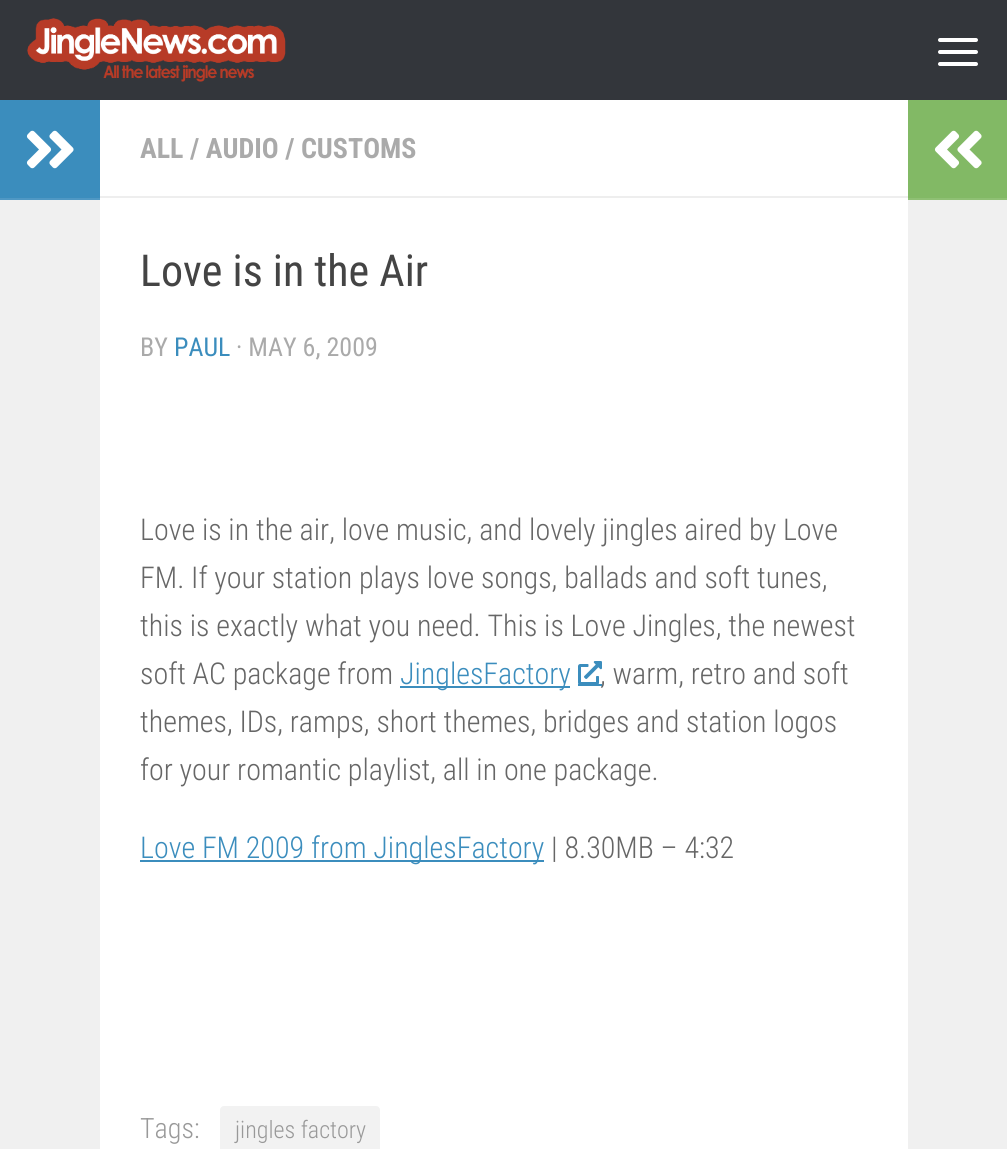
import math
import cairo

surface = cairo.ImageSurface(cairo.FORMAT_RGB24, 1007, 1149)
cr = cairo.Context(surface)
options = cairo.FontOptions()
options.set_hint_metrics(cairo.HINT_METRICS_OFF)
options.set_hint_style(cairo.HINT_STYLE_NONE)
cr.set_font_options(options)
cr.set_miter_limit(4)


def rgb(code):
    cr.set_source_rgb(*(v / 255 for v in bytes.fromhex(code[-6:])))


def rrect(x, y, w, h, r):
    cr.new_sub_path()
    for i, (u, v) in enumerate([(x + w - r, y + h - r), (x + r, y + h - r), (x + r, y + r), (x + w - r, y + r)]):
        cr.arc(u, v, r, i * math.pi / 2, (i + 1) * math.pi / 2)
    cr.close_path()


def image(path, x, y, w, h):
    cr.save()
    cr.set_source_surface(cairo.ImageSurface.create_from_png(path), x, y)
    cr.rectangle(x, y, w, h)
    cr.fill()
    cr.restore()


rgb("#ffffff")
cr.paint()
rgb("#33363b")
cr.rectangle(0, 0, 1007, 100)
cr.fill()
image("img/1.png", 27, 18, 259, 64)
rgb("#ffffff")
rrect(938, 38, 40, 4, 2)
cr.fill()
rrect(938, 50, 40, 4, 2)
cr.fill()
rrect(938, 62, 40, 4, 2)
cr.fill()
for x, y, w, h, color in [
    (0, 200, 100, 949, "#f0f0f0"),
    (0, 100, 100, 98, "#3b8dbd"),
    (0, 198, 100, 2, "#4f98c4"),
]:
    rgb(color)
    cr.rectangle(x, y, w, h)
    cr.fill()
image("img/2.png", 26, 130, 48, 39)
for x, y, w, h, color in [
    (100, 196, 808, 2, "#eeeeee"),
    (400, 686, 170, 2, "#3b8dbd"),
    (140, 860, 404, 2, "#3b8dbd"),
]:
    rgb(color)
    cr.rectangle(x, y, w, h)
    cr.fill()
rgb("#f2f2f2")
rrect(220, 1106, 160, 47, 4)
cr.fill()
rgb("#82b965")
cr.rectangle(908, 100, 99, 98)
cr.fill()
rgb("#8fc074")
cr.rectangle(908, 198, 99, 2)
cr.fill()
image("img/4.png", 934, 130, 48, 39)
rgb("#f0f0f0")
cr.rectangle(908, 200, 99, 949)
cr.fill()
cr.select_font_face("Roboto Condensed", cairo.FONT_SLANT_NORMAL, cairo.FONT_WEIGHT_BOLD)
cr.set_font_size(28)
rgb("#aaaaaa")
cr.move_to(140, 158)
cr.show_text("ALL / AUDIO / CUSTOMS")
cr.select_font_face("Roboto Condensed")
cr.set_font_size(44)
rgb("#444444")
cr.move_to(140, 286)
cr.show_text("Love is in the Air")
cr.set_font_size(26)
rgb("#aaaaaa")
cr.move_to(140, 356)
cr.show_text("BY")
rgb("#3b8dbd")
cr.move_to(174, 356)
cr.show_text("PAUL")
rgb("#aaaaaa")
cr.move_to(236, 356)
cr.show_text("· MAY 6, 2009")
cr.select_font_face("Roboto Condensed Light")
cr.set_font_size(30)
rgb("#666666")
for x, y, s in [
    (140, 540, "Love is in the air, love music, and lovely jingles aired by Love"),
    (140, 588, "FM. If your station plays love songs, ballads and soft tunes,"),
    (140, 636, "this is exactly what you need. This is Love Jingles, the newest"),
    (140, 684, "soft AC package from"),
]:
    cr.move_to(x, y)
    cr.show_text(s)
rgb("#3b8dbd")
cr.move_to(400, 684)
cr.show_text("JinglesFactory")
rgb("#666666")
cr.move_to(600, 684)
cr.show_text(", warm, retro and soft")
image("img/3.png", 578, 661, 24, 23)
rgb("#3b8dbd")
cr.rectangle(578, 684, 24, 2)
cr.fill()
rgb("#666666")
cr.move_to(140, 732)
cr.show_text("themes, IDs, ramps, short themes, bridges and station logos")
cr.move_to(140, 780)
cr.show_text("for your romantic playlist, all in one package.")
rgb("#3b8dbd")
cr.move_to(140, 858)
cr.show_text("Love FM 2009 from JinglesFactory")
rgb("#666666")
cr.move_to(551, 858)
cr.show_text("| 8.30MB – 4:32")
cr.set_font_size(28)
rgb("#999999")
cr.move_to(140, 1138)
cr.show_text("Tags:")
cr.set_font_size(24)
cr.move_to(235, 1138)
cr.show_text("jingles factory")
surface.write_to_png("page.png")
